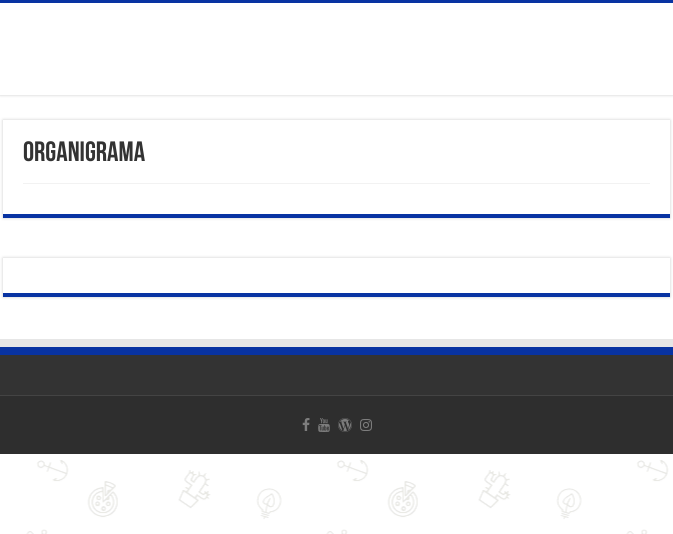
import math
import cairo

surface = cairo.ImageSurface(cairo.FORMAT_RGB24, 673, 534)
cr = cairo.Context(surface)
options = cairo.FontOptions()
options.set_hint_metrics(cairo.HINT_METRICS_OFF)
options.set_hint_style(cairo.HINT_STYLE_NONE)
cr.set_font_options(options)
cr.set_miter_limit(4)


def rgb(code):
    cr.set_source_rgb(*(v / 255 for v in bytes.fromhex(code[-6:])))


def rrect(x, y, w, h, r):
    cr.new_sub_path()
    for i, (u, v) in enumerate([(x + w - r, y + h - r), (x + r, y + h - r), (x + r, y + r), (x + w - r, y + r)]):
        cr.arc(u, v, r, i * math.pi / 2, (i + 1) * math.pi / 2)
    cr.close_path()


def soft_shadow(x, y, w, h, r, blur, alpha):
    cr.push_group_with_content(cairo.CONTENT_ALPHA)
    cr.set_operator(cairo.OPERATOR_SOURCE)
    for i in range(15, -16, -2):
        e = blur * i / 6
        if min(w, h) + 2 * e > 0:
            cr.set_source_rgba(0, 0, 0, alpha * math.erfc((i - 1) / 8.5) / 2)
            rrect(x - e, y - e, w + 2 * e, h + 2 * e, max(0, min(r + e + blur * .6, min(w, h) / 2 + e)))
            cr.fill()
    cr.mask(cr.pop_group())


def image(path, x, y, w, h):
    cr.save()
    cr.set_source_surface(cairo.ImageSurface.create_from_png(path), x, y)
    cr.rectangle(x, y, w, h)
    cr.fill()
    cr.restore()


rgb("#ffffff")
cr.paint()
image("img/1.png", 0, 454, 671, 80)
cr.save()
cr.rectangle(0, 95, 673, 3)
cr.clip()
rgb("#cacaca")
soft_shadow(0, 0, 673, 95, 0, 1.5, 1)
cr.restore()
rgb("#0833a2")
cr.rectangle(0, 0, 673, 3)
cr.fill()
cr.save()
cr.set_fill_rule(cairo.FILL_RULE_EVEN_ODD)
cr.new_path()
cr.move_to(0, 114)
cr.line_to(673, 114)
cr.line_to(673, 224)
cr.line_to(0, 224)
cr.close_path()
cr.move_to(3, 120)
cr.line_to(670, 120)
cr.line_to(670, 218)
cr.line_to(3, 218)
cr.close_path()
cr.clip()
rgb("#cacaca")
soft_shadow(3, 120, 667, 98, 0, 1.5, 1)
cr.restore()
cr.rectangle(3, 214, 667, 4)
cr.fill()
rgb("#f2f2f2")
cr.rectangle(23, 183, 627, 1)
cr.fill()
cr.save()
cr.set_fill_rule(cairo.FILL_RULE_EVEN_ODD)
cr.new_path()
cr.move_to(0, 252)
cr.line_to(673, 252)
cr.line_to(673, 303)
cr.line_to(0, 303)
cr.close_path()
cr.move_to(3, 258)
cr.line_to(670, 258)
cr.line_to(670, 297)
cr.line_to(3, 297)
cr.close_path()
cr.clip()
rgb("#cacaca")
soft_shadow(3, 258, 667, 39, 0, 1.5, 1)
cr.restore()
for x, y, w, h, color in [
    (3, 293, 667, 4, "#0833a2"),
    (0, 339, 673, 8, "#e6e6e6"),
    (0, 355, 673, 40, "#333333"),
    (0, 347, 673, 8, "#0833a2"),
    (0, 396, 673, 58, "#2e2e2e"),
    (0, 395, 673, 1, "#444444"),
]:
    rgb(color)
    cr.rectangle(x, y, w, h)
    cr.fill()
image("img/2.png", 302, 418, 8, 13)
image("img/3.png", 318, 418, 12, 14)
image("img/4.png", 338, 418, 14, 14)
image("img/5.png", 360, 419, 12, 12)
cr.select_font_face("Bebas Neue", cairo.FONT_SLANT_NORMAL, cairo.FONT_WEIGHT_BOLD)
cr.set_font_size(28)
rgb("#333333")
cr.move_to(23, 161)
cr.show_text("Organigrama")
surface.write_to_png("page.png")
